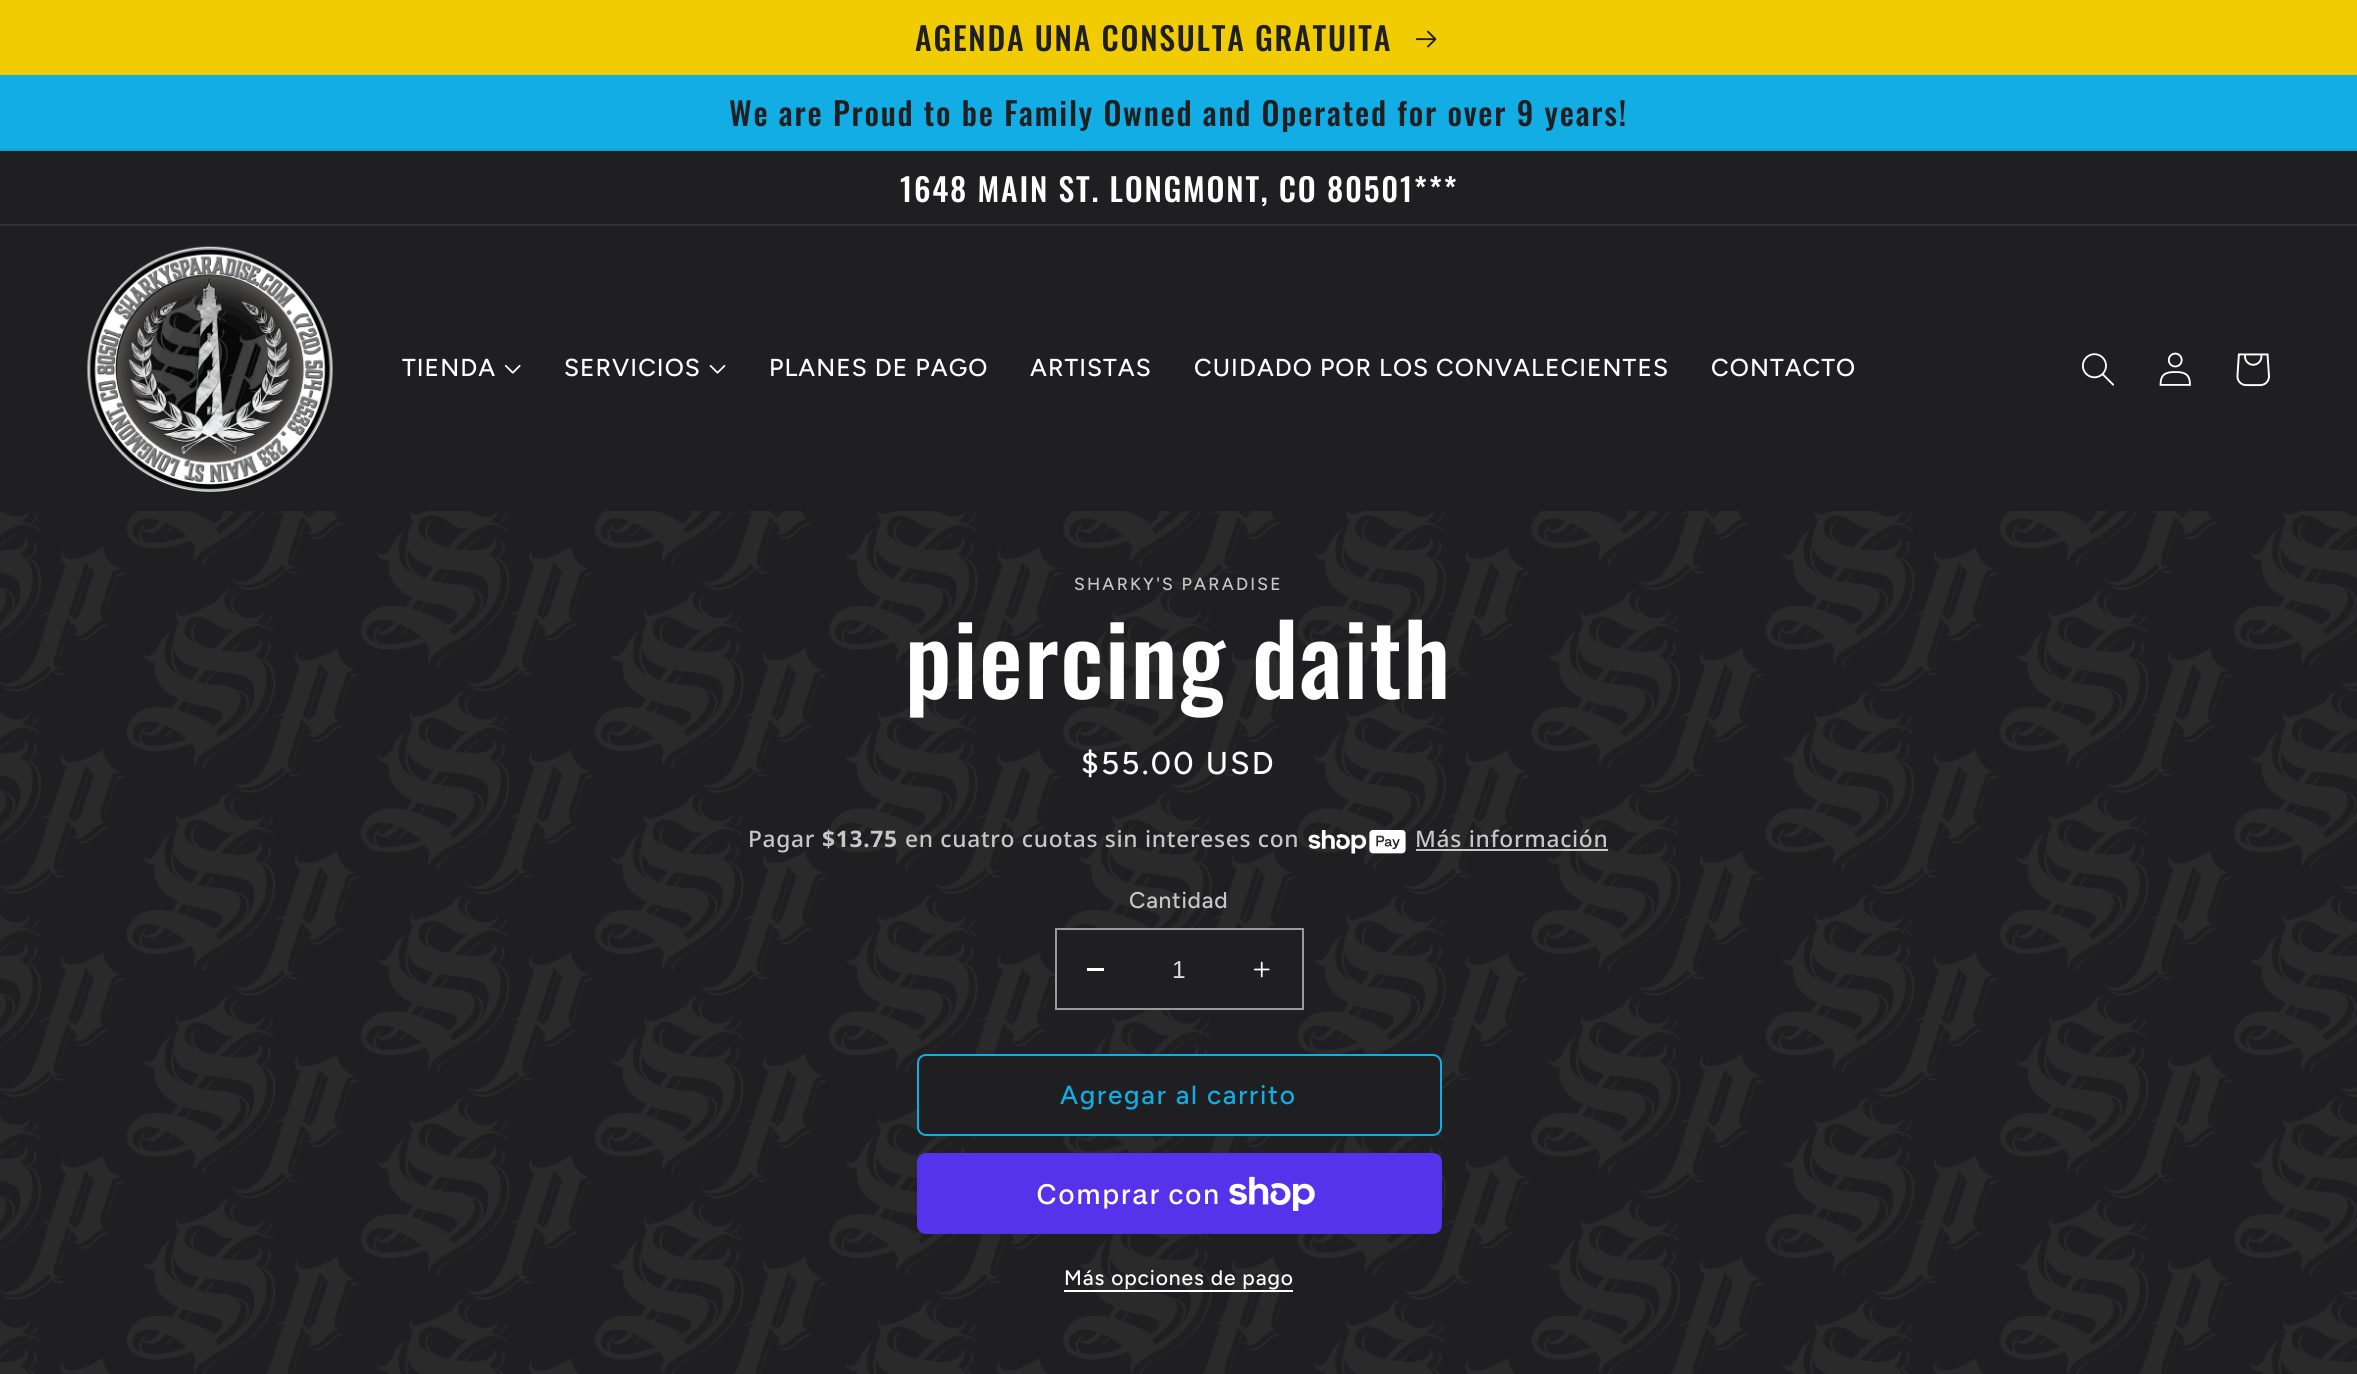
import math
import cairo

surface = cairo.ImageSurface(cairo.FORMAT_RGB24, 2357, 1374)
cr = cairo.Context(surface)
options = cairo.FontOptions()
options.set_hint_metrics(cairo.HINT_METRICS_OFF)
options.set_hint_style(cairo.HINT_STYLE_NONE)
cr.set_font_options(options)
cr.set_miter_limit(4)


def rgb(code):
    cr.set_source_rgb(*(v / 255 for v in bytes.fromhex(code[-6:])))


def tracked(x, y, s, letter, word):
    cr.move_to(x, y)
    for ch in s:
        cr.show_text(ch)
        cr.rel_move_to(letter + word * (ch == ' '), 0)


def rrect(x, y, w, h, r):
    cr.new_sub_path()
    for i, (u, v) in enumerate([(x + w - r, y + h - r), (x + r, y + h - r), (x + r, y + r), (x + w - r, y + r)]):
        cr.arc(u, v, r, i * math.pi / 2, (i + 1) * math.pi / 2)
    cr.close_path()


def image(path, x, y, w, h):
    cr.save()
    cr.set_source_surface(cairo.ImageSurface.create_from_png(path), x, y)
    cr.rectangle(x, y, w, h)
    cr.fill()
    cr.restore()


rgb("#1f1f21")
cr.paint()
rgb("#ffd700")
cr.rectangle(0, 74, 2357, 1)
cr.fill()
cr.set_source_rgba(0.122, 0.122, 0.129, 0.08)
cr.rectangle(0, 74, 2357, 1)
cr.fill()
rgb("#f2cc02")
cr.rectangle(0, 0, 2357, 74)
cr.fill()
image("img/1.png", 1416, 30, 21, 18)
for x, y, w, h, color in [
    (0, 75, 2357, 74, "#12ade4"),
    (0, 149, 2357, 2, "#13a2d4"),
    (0, 224, 2357, 2, "#313133"),
]:
    rgb(color)
    cr.rectangle(x, y, w, h)
    cr.fill()
image("img/2.png", 87, 246, 246, 246)
image("img/3.png", 504, 364, 17, 10)
image("img/4.png", 709, 364, 17, 10)
image("img/5.png", 2082, 353, 32, 33)
image("img/6.png", 2159, 352, 32, 34)
image("img/7.png", 2236, 353, 34, 34)
image("img/8.png", 0, 511, 2357, 863)
image("img/9.png", 1308, 830, 98, 24)
cr.set_source_rgba(1, 1, 1, 0.75)
cr.rectangle(1416, 849, 192, 2)
cr.fill()
rgb("#1f1f21")
cr.rectangle(1057, 930, 219, 78)
cr.fill()
rgb("#ffffff")
cr.rectangle(1087, 968, 17, 3)
cr.fill()
image("img/10.png", 1253, 961, 17, 17)
cr.rectangle(1056, 929, 247, 80)
rgb("#9a9a9b")
cr.stroke()
rgb("#1f1f21")
rrect(917, 1054, 525, 82, 9)
cr.fill()
rrect(918, 1055, 523, 80, 8)
rgb("#12ade4")
cr.stroke()
rgb("#5433eb")
rrect(917, 1153, 525, 81, 9)
cr.fill()
image("img/11.png", 1229, 1176, 86, 35)
rgb("#ffffff")
cr.rectangle(1064, 1290, 229, 2)
cr.fill()
cr.select_font_face("Oswald Medium")
cr.set_font_size(31.85)
rgb("#1f1f21")
tracked(915, 51, "AGENDA UNA CONSULTA GRATUITA", 1.75, 0)
tracked(729, 126, "We are Proud to be Family Owned and Operated for over 9 years!", 1.75, 0)
rgb("#ffffff")
tracked(900, 202, "1648 MAIN ST. LONGMONT, CO 80501***", 1.75, 0)
cr.select_font_face("Figtree Medium")
cr.set_font_size(24.5)
for x, y, s in [
    (402, 376, "TIENDA"),
    (564, 376, "SERVICIOS"),
    (769, 376, "PLANES DE PAGO"),
    (1030, 376, "ARTISTAS"),
    (1194, 376, "CUIDADO POR LOS CONVALECIENTES"),
    (1711, 376, "CONTACTO"),
]:
    tracked(x, y, s, 1.05, 0)
cr.set_font_size(17.5)
rgb("#c7c7c8")
tracked(1074, 590, "SHARKY'S PARADISE", 2.25, 0)
cr.select_font_face("Oswald Medium")
cr.set_font_size(98)
rgb("#ffffff")
tracked(905, 699, "piercing daith", 1.5, 0)
cr.select_font_face("Figtree Medium")
cr.set_font_size(31.5)
tracked(1081, 774, "$55.00 USD", 2.25, 0)
cr.select_font_face("Noto Sans Medium")
cr.set_font_size(22.75)
rgb("#c7c7c8")
tracked(748, 847, "Pagar", 0.7, 0)
cr.select_font_face("Noto Sans", cairo.FONT_SLANT_NORMAL, cairo.FONT_WEIGHT_BOLD)
tracked(822, 847, "$13.75", 0.7, 0)
cr.select_font_face("Noto Sans Medium")
tracked(905, 847, "en cuatro cuotas sin intereses con", 0.7, 0)
tracked(1415, 847, "Más información", 0.7, 0)
cr.select_font_face("Figtree Medium")
tracked(1129, 908, "Cantidad", 0.7, 0)
cr.select_font_face("Liberation Sans")
cr.set_font_size(24.5)
rgb("#ddddde")
cr.move_to(1172, 978)
cr.show_text("1")
cr.select_font_face("Figtree Medium")
cr.set_font_size(26.25)
rgb("#12ade4")
tracked(1060, 1104, "Agregar al carrito", 1.75, 0)
cr.select_font_face("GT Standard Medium")
cr.set_font_size(28)
rgb("#ffffff")
tracked(1036, 1204, "Comprar con", 1.05, 0)
cr.select_font_face("Figtree Medium")
cr.set_font_size(21)
tracked(1064, 1285, "Más opciones de pago", 0.9, 0)
surface.write_to_png("page.png")
